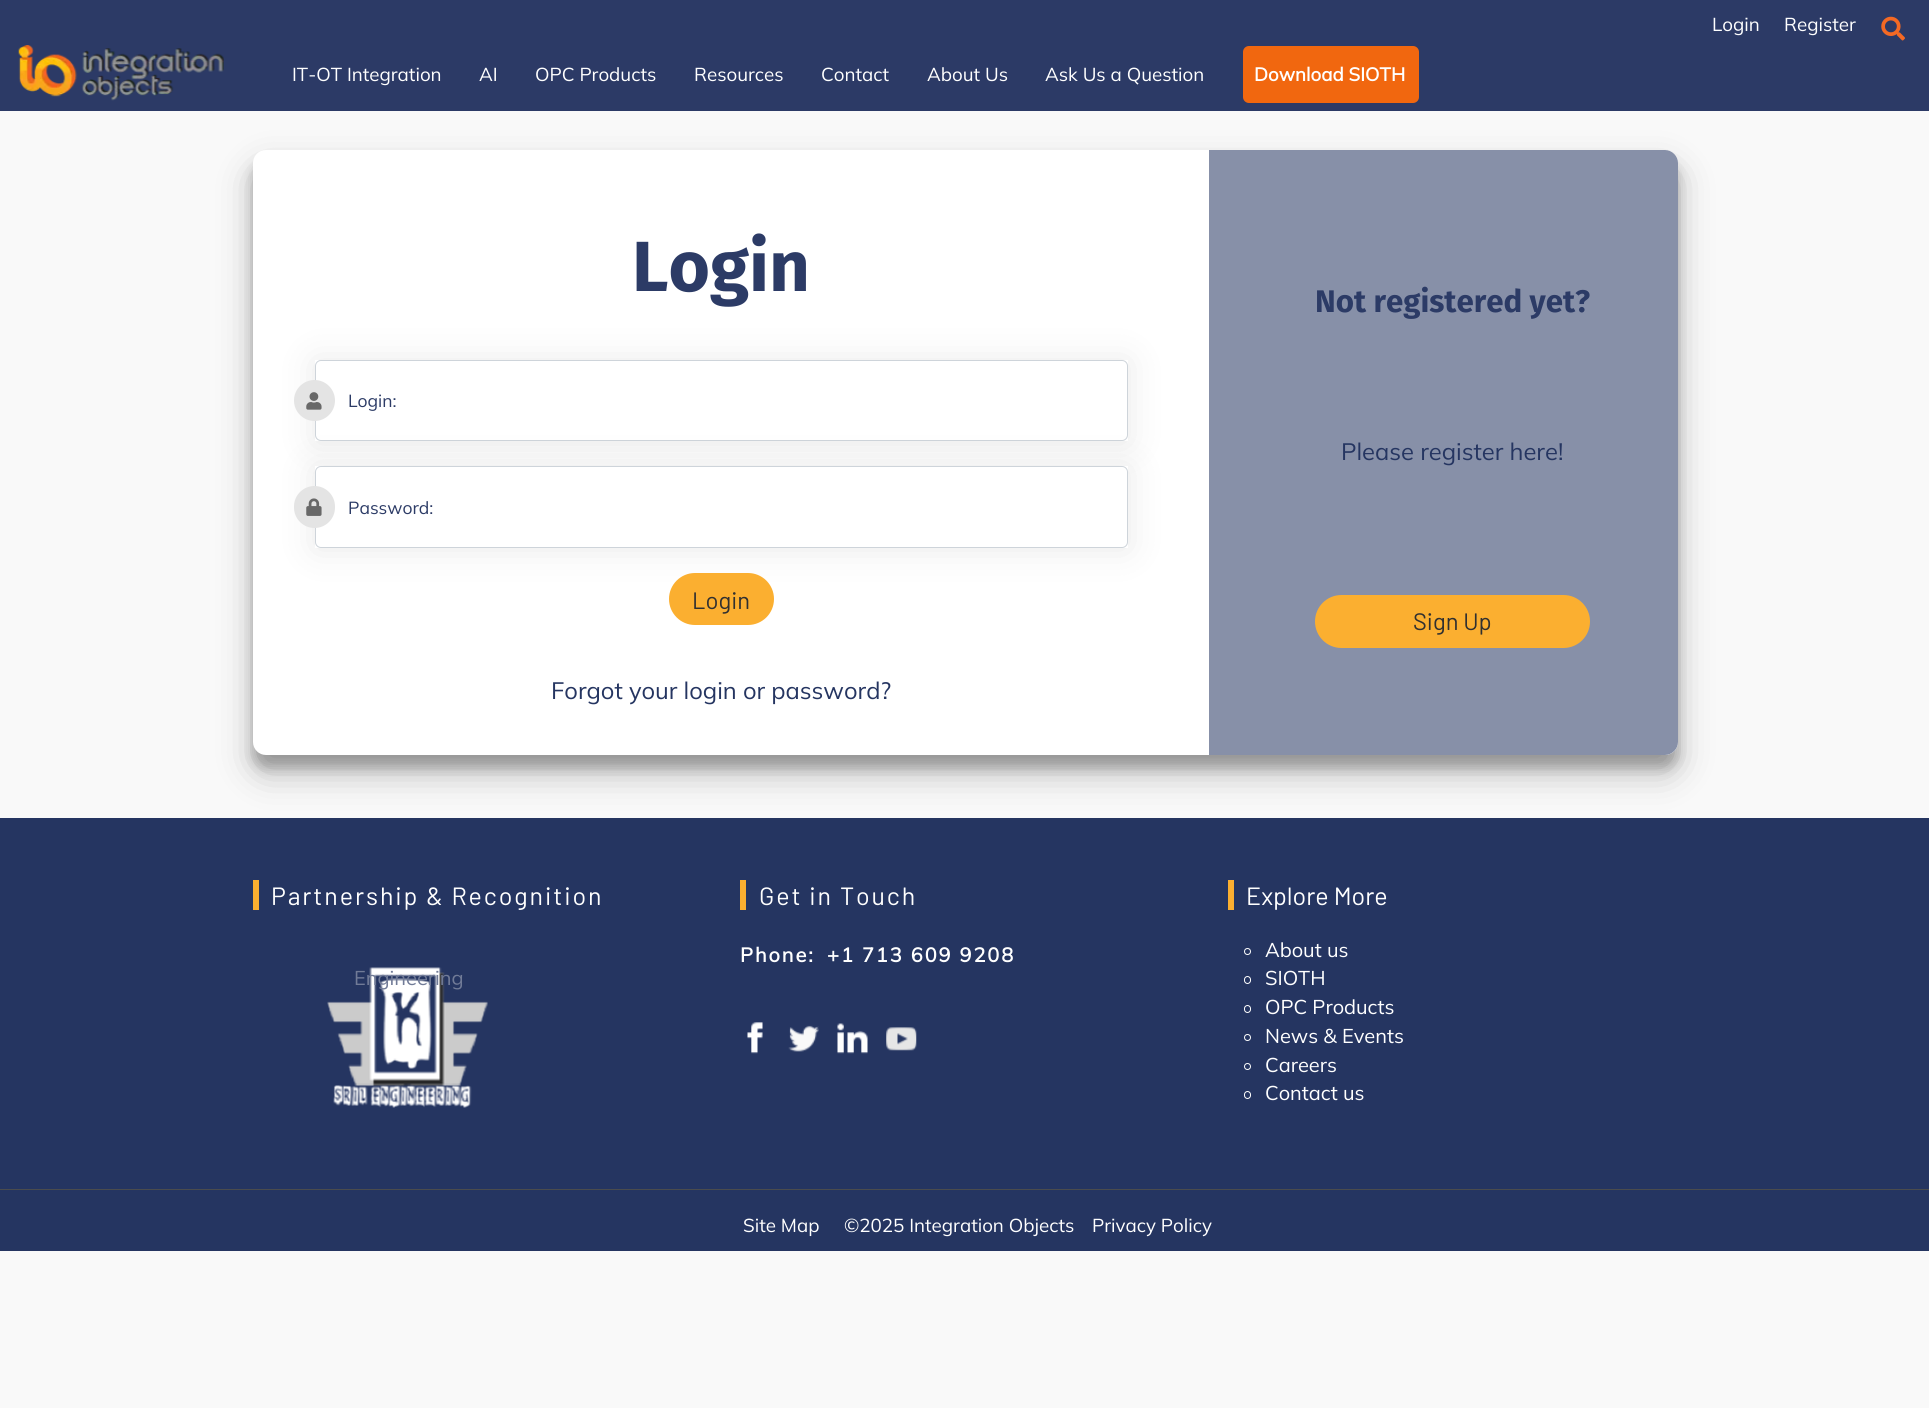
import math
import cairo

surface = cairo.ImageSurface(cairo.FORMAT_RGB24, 1929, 1408)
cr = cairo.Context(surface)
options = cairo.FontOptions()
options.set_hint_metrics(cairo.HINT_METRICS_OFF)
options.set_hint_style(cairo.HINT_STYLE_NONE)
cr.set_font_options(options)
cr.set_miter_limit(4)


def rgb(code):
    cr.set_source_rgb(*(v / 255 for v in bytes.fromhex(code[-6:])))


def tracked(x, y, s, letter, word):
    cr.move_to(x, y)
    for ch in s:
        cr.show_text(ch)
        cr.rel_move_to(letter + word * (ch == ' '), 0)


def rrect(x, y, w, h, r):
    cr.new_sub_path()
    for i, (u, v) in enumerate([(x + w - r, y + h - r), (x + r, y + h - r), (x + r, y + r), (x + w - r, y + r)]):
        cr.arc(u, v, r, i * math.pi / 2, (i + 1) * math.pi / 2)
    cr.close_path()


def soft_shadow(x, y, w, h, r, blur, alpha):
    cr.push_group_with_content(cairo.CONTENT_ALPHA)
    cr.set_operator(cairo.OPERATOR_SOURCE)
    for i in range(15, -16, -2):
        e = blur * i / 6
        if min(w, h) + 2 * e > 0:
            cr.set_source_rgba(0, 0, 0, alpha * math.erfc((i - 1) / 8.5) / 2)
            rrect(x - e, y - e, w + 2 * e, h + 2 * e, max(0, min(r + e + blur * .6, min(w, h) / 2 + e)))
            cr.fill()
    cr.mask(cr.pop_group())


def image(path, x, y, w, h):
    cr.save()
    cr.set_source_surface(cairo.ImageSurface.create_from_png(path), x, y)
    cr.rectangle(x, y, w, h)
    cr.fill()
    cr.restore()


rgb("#f9f9f9")
cr.paint()
rgb("#2c3a66")
cr.rectangle(0, 0, 1929, 111)
cr.fill()
image("img/1.png", 1881, 16, 24, 25)
image("img/2.png", 18, 45, 206, 56)
rgb("#f1670f")
rrect(1243, 46, 176, 57, 6)
cr.fill()
rgb("#000000")
soft_shadow(253, 163, 1425, 605, 13, 6, 0.22)
soft_shadow(253, 168, 1425, 605, 13, 17.5, 0.25)
rgb("#ffffff")
rrect(253, 150, 1425, 605, 13)
cr.fill()
rgb("#010101")
soft_shadow(315, 361, 813, 82, 0, 18, 0.09)
rgb("#ffffff")
cr.rectangle(315, 360, 813, 81)
cr.fill()
rrect(315.5, 360.5, 812, 80, 5.5)
rgb("#ced4da")
cr.set_line_width(1)
cr.stroke()
rgb("#e4e4e4")
cr.arc(314.5, 400.5, 20.5, 0, 2 * math.pi)
cr.fill()
image("img/3.png", 306, 392, 16, 18)
rgb("#010101")
soft_shadow(315, 468, 813, 81, 0, 18, 0.09)
rgb("#ffffff")
cr.rectangle(315, 466, 813, 82)
cr.fill()
rrect(315.5, 466.5, 812, 81, 5.5)
rgb("#ced4da")
cr.stroke()
rgb("#e4e4e4")
rrect(294, 486, 41, 42, 20.5)
cr.fill()
image("img/4.png", 306, 498, 16, 18)
rgb("#fbaf30")
rrect(669, 573, 105, 52, 26)
cr.fill()
rgb("#8790a8")
cr.new_path()
cr.move_to(1209, 150)
cr.line_to(1665, 150)
cr.curve_to(1672, 150, 1678, 156, 1678, 163)
cr.line_to(1678, 742)
cr.curve_to(1678, 749, 1672, 755, 1665, 755)
cr.line_to(1209, 755)
cr.close_path()
cr.fill()
rgb("#fbaf30")
rrect(1315, 595, 275, 53, 26.5)
cr.fill()
rgb("#253561")
cr.rectangle(0, 818, 1929, 371)
cr.fill()
rgb("#fbaf30")
cr.rectangle(253, 880, 6, 30)
cr.fill()
image("img/5.png", 327, 967, 161, 141)
cr.rectangle(740, 880, 6, 30)
cr.fill()
image("img/6.png", 747, 1022, 16, 32)
image("img/7.png", 788, 1025, 31, 27)
image("img/8.png", 837, 1023, 31, 31)
image("img/9.png", 886, 1027, 31, 24)
cr.rectangle(1228, 880, 6, 30)
cr.fill()
cr.arc(1247.5, 951.5, 3, 0, 2 * math.pi)
rgb("#ffffff")
cr.stroke()
rrect(1244.5, 976.5, 6, 7, 3)
cr.stroke()
rrect(1244.5, 1005.5, 6, 7, 3)
cr.stroke()
cr.arc(1247.5, 1037.5, 3, 0, 2 * math.pi)
cr.stroke()
cr.arc(1247.5, 1066.5, 3, 0, 2 * math.pi)
cr.stroke()
rrect(1244.5, 1091.5, 6, 7, 3)
cr.stroke()
rgb("#253561")
cr.rectangle(0, 1190, 1929, 61)
cr.fill()
rgb("#4b4c4d")
cr.rectangle(0, 1189, 1929, 1)
cr.fill()
cr.select_font_face("Mulish ExtraLight")
cr.set_font_size(18.75)
rgb("#ffffff")
for x, y, s in [
    (1712, 31, "Login"),
    (1784, 31, "Register"),
    (292, 81, "IT-OT Integration"),
    (479, 81, "AI"),
    (535, 81, "OPC Products"),
    (694, 81, "Resources"),
    (821, 81, "Contact"),
    (927, 81, "About Us"),
    (1045, 81, "Ask Us a Question"),
]:
    cr.move_to(x, y)
    cr.show_text(s)
cr.select_font_face("Mulish", cairo.FONT_SLANT_NORMAL, cairo.FONT_WEIGHT_BOLD)
cr.move_to(1254, 81)
cr.show_text("Download SIOTH")
cr.select_font_face("Fira Sans", cairo.FONT_SLANT_NORMAL, cairo.FONT_WEIGHT_BOLD)
cr.set_font_size(71)
rgb("#2c3b66")
cr.move_to(632, 291)
cr.show_text("Login")
cr.select_font_face("Mulish ExtraLight")
cr.set_font_size(17.5)
cr.move_to(348, 407)
cr.show_text("Login:")
cr.move_to(348, 514)
cr.show_text("Password:")
cr.select_font_face("Barlow")
cr.set_font_size(23.75)
rgb("#303030")
cr.move_to(692, 609)
cr.show_text("Login")
cr.select_font_face("Mulish ExtraLight")
rgb("#253561")
cr.move_to(551, 699)
cr.show_text("Forgot your login or password?")
cr.select_font_face("Fira Sans", cairo.FONT_SLANT_NORMAL, cairo.FONT_WEIGHT_BOLD)
cr.set_font_size(31.25)
rgb("#2c3b66")
cr.move_to(1315, 312)
cr.show_text("Not registered yet?")
cr.select_font_face("Mulish ExtraLight")
cr.set_font_size(23.75)
rgb("#253561")
cr.move_to(1341, 460)
cr.show_text("Please register here!")
cr.select_font_face("Barlow")
rgb("#303030")
cr.move_to(1413, 630)
cr.show_text("Sign Up")
cr.set_font_size(25)
rgb("#ffffff")
tracked(271, 905, "Partnership & Recognition", 1.9, 0)
cr.select_font_face("Mulish ExtraLight")
cr.set_font_size(20)
rgb("#717b97")
cr.move_to(354, 985)
cr.show_text("Engineering")
cr.select_font_face("Barlow")
cr.set_font_size(25)
rgb("#ffffff")
tracked(759, 905, "Get in Touch", 1.9, 0)
cr.select_font_face("Mulish", cairo.FONT_SLANT_NORMAL, cairo.FONT_WEIGHT_BOLD)
cr.set_font_size(20)
tracked(740, 962, "Phone:", 1.9, 0)
tracked(827, 962, "+1 713 609 9208", 1.9, 0)
cr.select_font_face("Barlow")
cr.set_font_size(25)
cr.move_to(1246, 905)
cr.show_text("Explore More")
cr.select_font_face("Mulish ExtraLight")
cr.set_font_size(20)
for x, y, s in [
    (1265, 957, "About us"),
    (1265, 985, "SIOTH"),
    (1265, 1014, "OPC Products"),
    (1265, 1043, "News & Events"),
    (1265, 1072, "Careers"),
    (1265, 1100, "Contact us"),
]:
    cr.move_to(x, y)
    cr.show_text(s)
cr.set_font_size(18.75)
for x, y, s in [
    (743, 1232, "Site Map"),
    (844, 1232, "©2025 Integration Objects"),
    (1092, 1232, "Privacy Policy"),
]:
    cr.move_to(x, y)
    cr.show_text(s)
surface.write_to_png("page.png")
